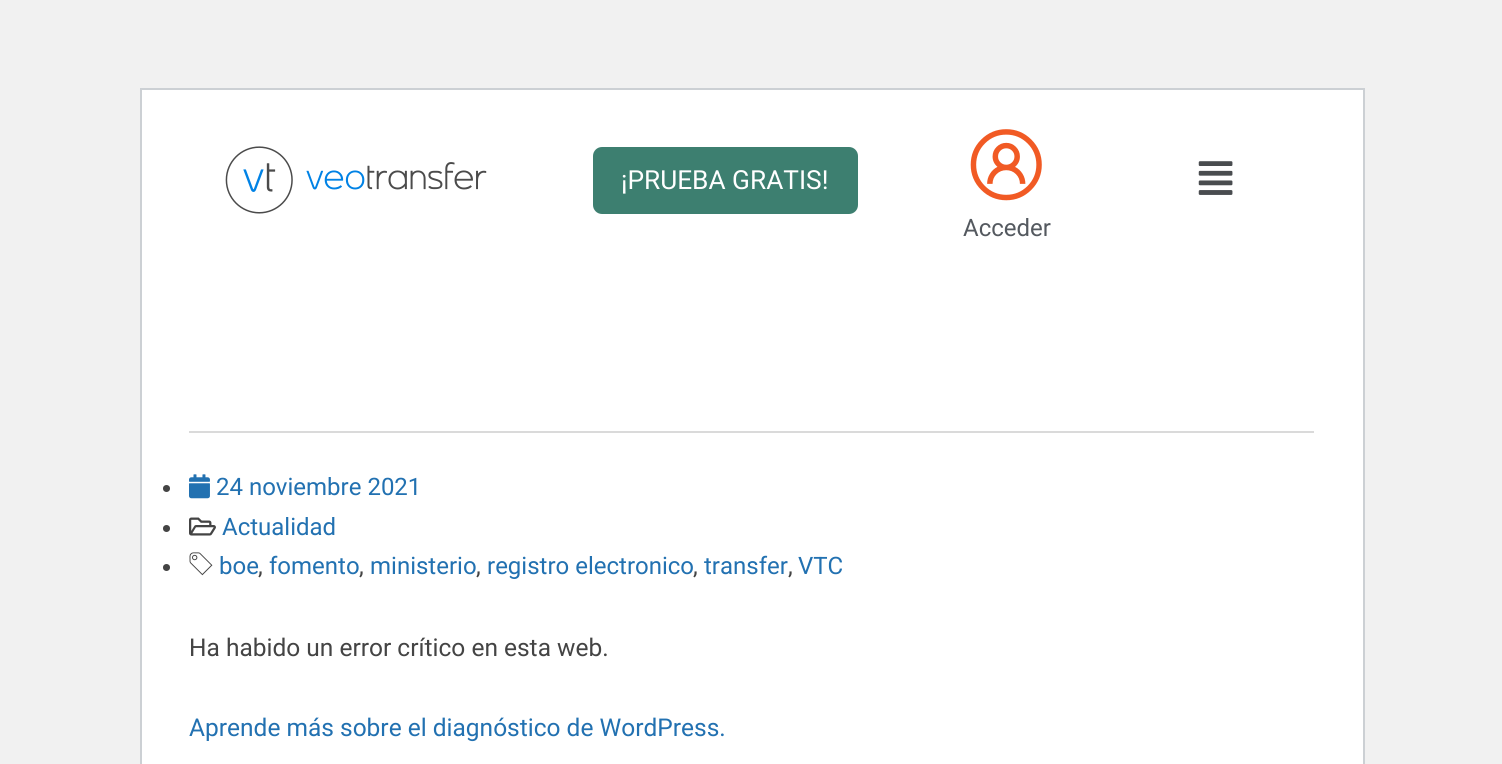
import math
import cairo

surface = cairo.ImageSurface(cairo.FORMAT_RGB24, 1502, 764)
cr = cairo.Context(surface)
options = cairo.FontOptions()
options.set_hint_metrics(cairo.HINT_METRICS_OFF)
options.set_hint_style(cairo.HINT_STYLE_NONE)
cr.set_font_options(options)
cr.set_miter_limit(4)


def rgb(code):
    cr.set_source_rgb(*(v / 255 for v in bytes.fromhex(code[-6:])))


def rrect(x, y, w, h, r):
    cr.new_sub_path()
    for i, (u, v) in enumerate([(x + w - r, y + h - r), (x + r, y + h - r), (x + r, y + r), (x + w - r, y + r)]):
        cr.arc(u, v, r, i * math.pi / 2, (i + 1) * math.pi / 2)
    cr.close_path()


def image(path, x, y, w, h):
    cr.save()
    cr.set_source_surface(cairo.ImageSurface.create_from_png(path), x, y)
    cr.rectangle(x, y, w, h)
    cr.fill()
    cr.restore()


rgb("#f1f1f1")
cr.paint()
rgb("#ffffff")
cr.rectangle(141, 89, 1223, 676)
cr.fill_preserve()
rgb("#ccd0d4")
cr.stroke()
image("img/1.png", 225, 146, 262, 68)
rgb("#3d7f70")
rrect(593, 147, 265, 67, 9)
cr.fill()
image("img/2.png", 1198, 161, 35, 34)
image("img/3.png", 970, 129, 72, 72)
rgb("#dadada")
cr.rectangle(189, 431, 1125, 2)
cr.fill()
rgb("#444444")
cr.arc(166.5, 488.5, 3.5, 0, 2 * math.pi)
cr.fill()
image("img/4.png", 189, 474, 21, 25)
cr.arc(166.5, 528.5, 3.5, 0, 2 * math.pi)
cr.fill()
image("img/5.png", 189, 517, 27, 19)
cr.arc(166.5, 567.5, 3.5, 0, 2 * math.pi)
cr.fill()
image("img/6.png", 189, 552, 24, 24)
cr.select_font_face("Roboto")
cr.set_font_size(26.25)
rgb("#ffffff")
cr.move_to(621, 189)
cr.show_text("¡PRUEBA GRATIS!")
cr.set_font_size(24)
rgb("#54595f")
cr.move_to(963, 236)
cr.show_text("Acceder")
rgb("#2271b1")
for x, y, s in [
    (216, 495, "24 noviembre 2021"),
    (222, 535, "Actualidad"),
    (219, 574, "boe"),
]:
    cr.move_to(x, y)
    cr.show_text(s)
rgb("#444444")
cr.move_to(258, 574)
cr.show_text(",")
rgb("#2271b1")
cr.move_to(269, 574)
cr.show_text("fomento")
rgb("#444444")
cr.move_to(359, 574)
cr.show_text(",")
rgb("#2271b1")
cr.move_to(370, 574)
cr.show_text("ministerio")
rgb("#444444")
cr.move_to(476, 574)
cr.show_text(",")
rgb("#2271b1")
cr.move_to(487, 574)
cr.show_text("registro electronico")
rgb("#444444")
cr.move_to(693, 574)
cr.show_text(",")
rgb("#2271b1")
cr.move_to(704, 574)
cr.show_text("transfer")
rgb("#444444")
cr.move_to(788, 574)
cr.show_text(",")
rgb("#2271b1")
cr.move_to(798, 574)
cr.show_text("VTC")
cr.set_font_size(24.5)
rgb("#444444")
cr.move_to(189, 656)
cr.show_text("Ha habido un error crítico en esta web.")
rgb("#2271b1")
cr.move_to(189, 736)
cr.show_text("Aprende más sobre el diagnóstico de WordPress.")
surface.write_to_png("page.png")
